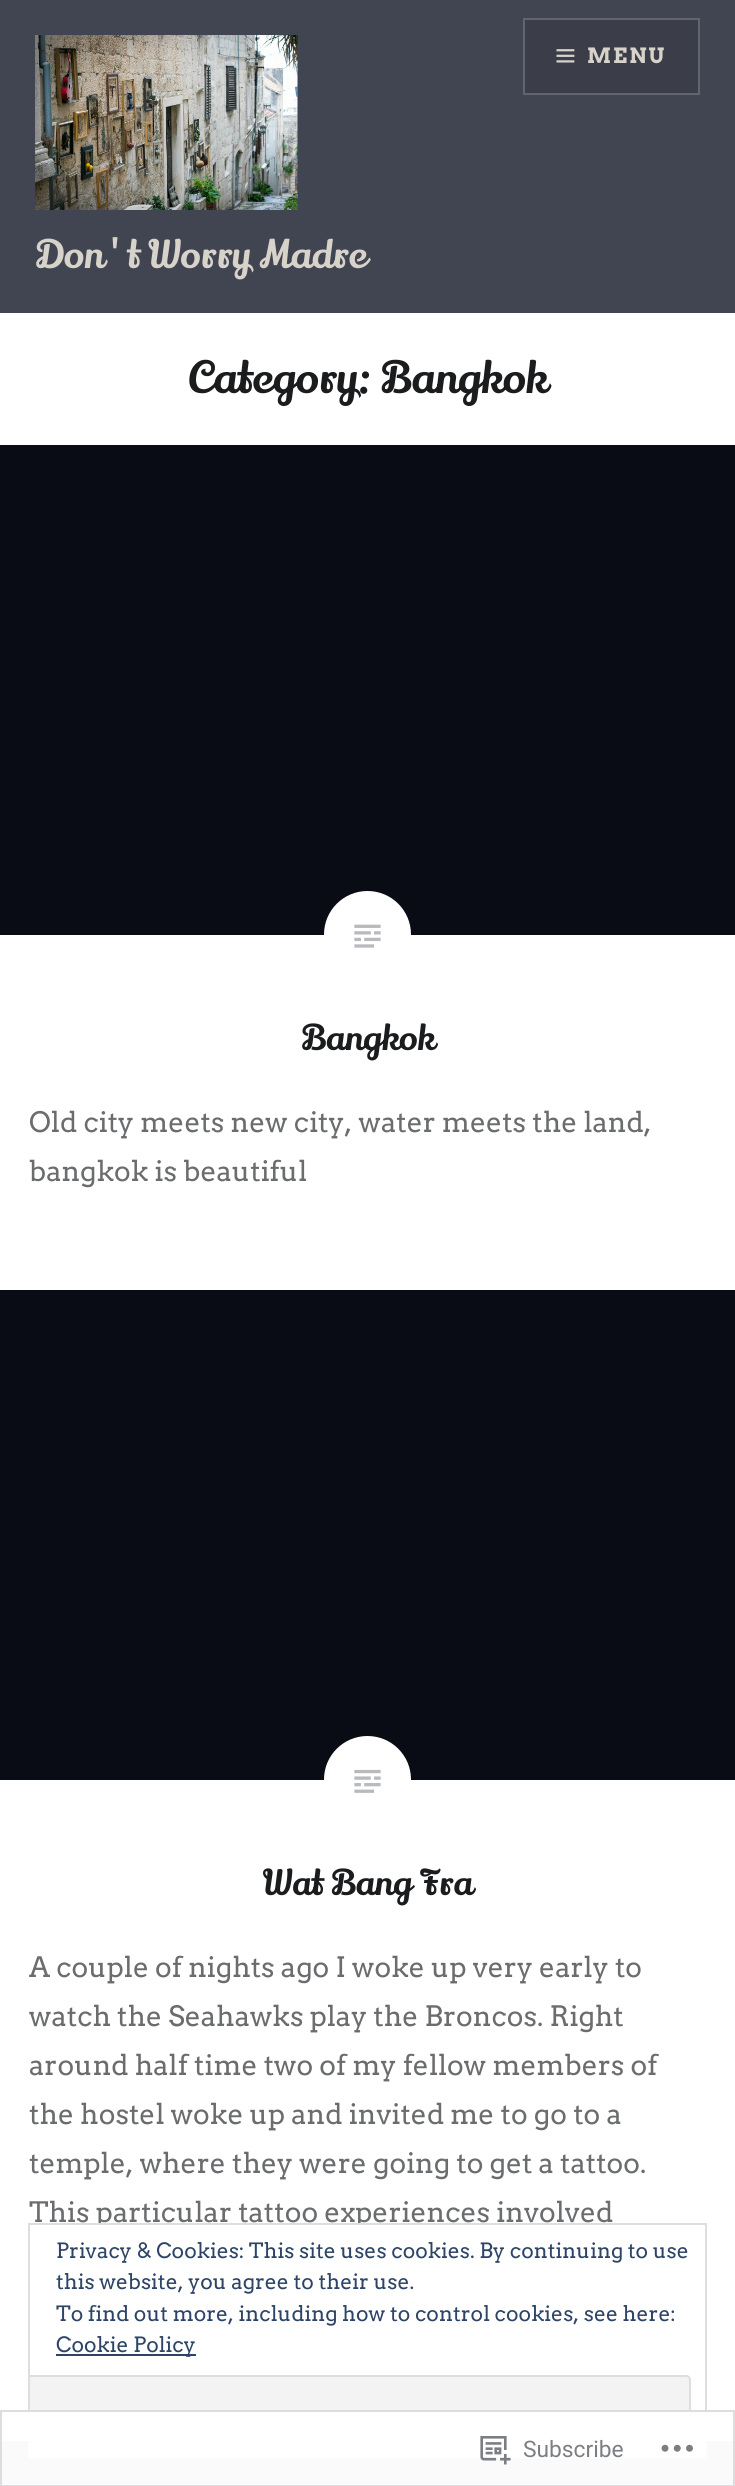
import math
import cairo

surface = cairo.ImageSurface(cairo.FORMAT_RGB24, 735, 2486)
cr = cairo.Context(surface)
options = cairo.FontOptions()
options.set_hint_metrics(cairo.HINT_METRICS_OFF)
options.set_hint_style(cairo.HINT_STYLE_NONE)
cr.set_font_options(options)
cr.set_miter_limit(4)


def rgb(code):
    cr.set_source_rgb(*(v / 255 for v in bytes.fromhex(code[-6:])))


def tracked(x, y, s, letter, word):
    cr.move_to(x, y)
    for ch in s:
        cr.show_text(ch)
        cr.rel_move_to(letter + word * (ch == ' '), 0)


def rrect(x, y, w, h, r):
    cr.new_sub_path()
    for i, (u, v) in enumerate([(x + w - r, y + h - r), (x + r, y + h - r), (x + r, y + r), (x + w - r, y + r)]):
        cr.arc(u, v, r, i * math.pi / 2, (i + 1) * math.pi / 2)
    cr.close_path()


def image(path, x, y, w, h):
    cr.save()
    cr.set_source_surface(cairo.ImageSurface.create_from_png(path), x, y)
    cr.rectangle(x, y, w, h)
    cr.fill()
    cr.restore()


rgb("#ffffff")
cr.paint()
rgb("#414551")
cr.rectangle(0, 0, 735, 313)
cr.fill()
rgb("#3b3e49")
cr.rectangle(524, 19, 175, 75)
cr.fill_preserve()
rgb("#62656d")
cr.stroke()
image("img/1.png", 556, 49, 19, 14)
image("img/2.png", 35, 35, 263, 175)
rgb("#090c14")
cr.rectangle(0, 445, 735, 490)
cr.fill()
rgb("#ffffff")
cr.arc(367.5, 934.5, 43.5, 0, 2 * math.pi)
cr.fill()
image("img/3.png", 354, 924, 27, 24)
rgb("#090c14")
cr.rectangle(0, 1290, 735, 490)
cr.fill()
rgb("#ffffff")
rrect(324, 1736, 87, 88, 43.5)
cr.fill()
image("img/4.png", 354, 1769, 27, 24)
rgb("#090c14")
cr.rectangle(0, 2441, 735, 45)
cr.fill()
cr.select_font_face("Arvo", cairo.FONT_SLANT_NORMAL, cairo.FONT_WEIGHT_BOLD)
cr.set_font_size(21)
rgb("#d7d3ca")
tracked(587, 63, "MENU", 2, 0)
cr.select_font_face("Lily Script One")
cr.set_font_size(38.5)
cr.move_to(35, 268)
cr.show_text("Don't Worry Madre")
cr.set_font_size(43.75)
rgb("#1a1c1e")
cr.move_to(188, 393)
cr.show_text("Category: Bangkok")
cr.set_font_size(35)
cr.move_to(301, 1050)
cr.show_text("Bangkok")
cr.select_font_face("Arvo")
cr.set_font_size(28)
rgb("#6a6c6e")
cr.move_to(29, 1132)
cr.show_text("Old city meets new city, water meets the land,")
cr.move_to(29, 1181)
cr.show_text("bangkok is beautiful")
cr.select_font_face("Lily Script One")
cr.set_font_size(35)
rgb("#1a1c1e")
cr.move_to(263, 1895)
cr.show_text("Wat Bang Fra")
cr.select_font_face("Arvo")
cr.set_font_size(28)
rgb("#6a6c6e")
for x, y, s in [
    (29, 1977, "A couple of nights ago I woke up very early to"),
    (29, 2026, "watch the Seahawks play the Broncos. Right"),
    (29, 2075, "around half time two of my fellow members of"),
    (29, 2124, "the hostel woke up and invited me to go to a"),
    (29, 2173, "temple, where they were going to get a tattoo."),
    (29, 2222, "This particular tattoo experiences involved"),
]:
    cr.move_to(x, y)
    cr.show_text(s)
rgb("#ffffff")
cr.rectangle(29, 2224, 677, 234)
cr.fill_preserve()
rgb("#dedede")
cr.stroke()
cr.set_font_size(21)
rgb("#2e4467")
for x, y, s in [
    (56, 2258, "Privacy & Cookies: This site uses cookies. By continuing to use"),
    (56, 2289, "this website, you agree to their use."),
    (56, 2321, "To find out more, including how to control cookies, see here:"),
]:
    cr.move_to(x, y)
    cr.show_text(s)
cr.rectangle(56, 2354, 140, 2)
cr.fill()
cr.move_to(56, 2352)
cr.show_text("Cookie Policy")
rgb("#f3f3f3")
cr.new_path()
cr.move_to(30, 2375)
cr.line_to(686, 2375)
cr.curve_to(689, 2375, 691, 2377, 691, 2380)
cr.line_to(691, 2438)
cr.curve_to(691, 2441, 689, 2443, 686, 2443)
cr.line_to(30, 2443)
cr.close_path()
cr.fill()
cr.save()
cr.rectangle(30, 2224, 675, 233)
cr.clip()
rrect(17, 2376, 673, 66, 4)
rgb("#dedede")
cr.stroke()
cr.restore()
cr.set_source_rgba(1, 1, 1, 0.98)
cr.rectangle(0, 2410, 735, 76)
cr.fill()
cr.rectangle(1, 2411, 733, 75)
cr.set_source_rgba(0.863, 0.863, 0.871, 0.98)
cr.stroke()
image("img/5.png", 480, 2436, 31, 29)
cr.select_font_face("Roboto")
cr.set_font_size(22.75)
rgb("#7b7f84")
cr.move_to(523, 2457)
cr.show_text("Subscribe")
image("img/6.png", 661, 2444, 32, 8)
surface.write_to_png("page.png")
